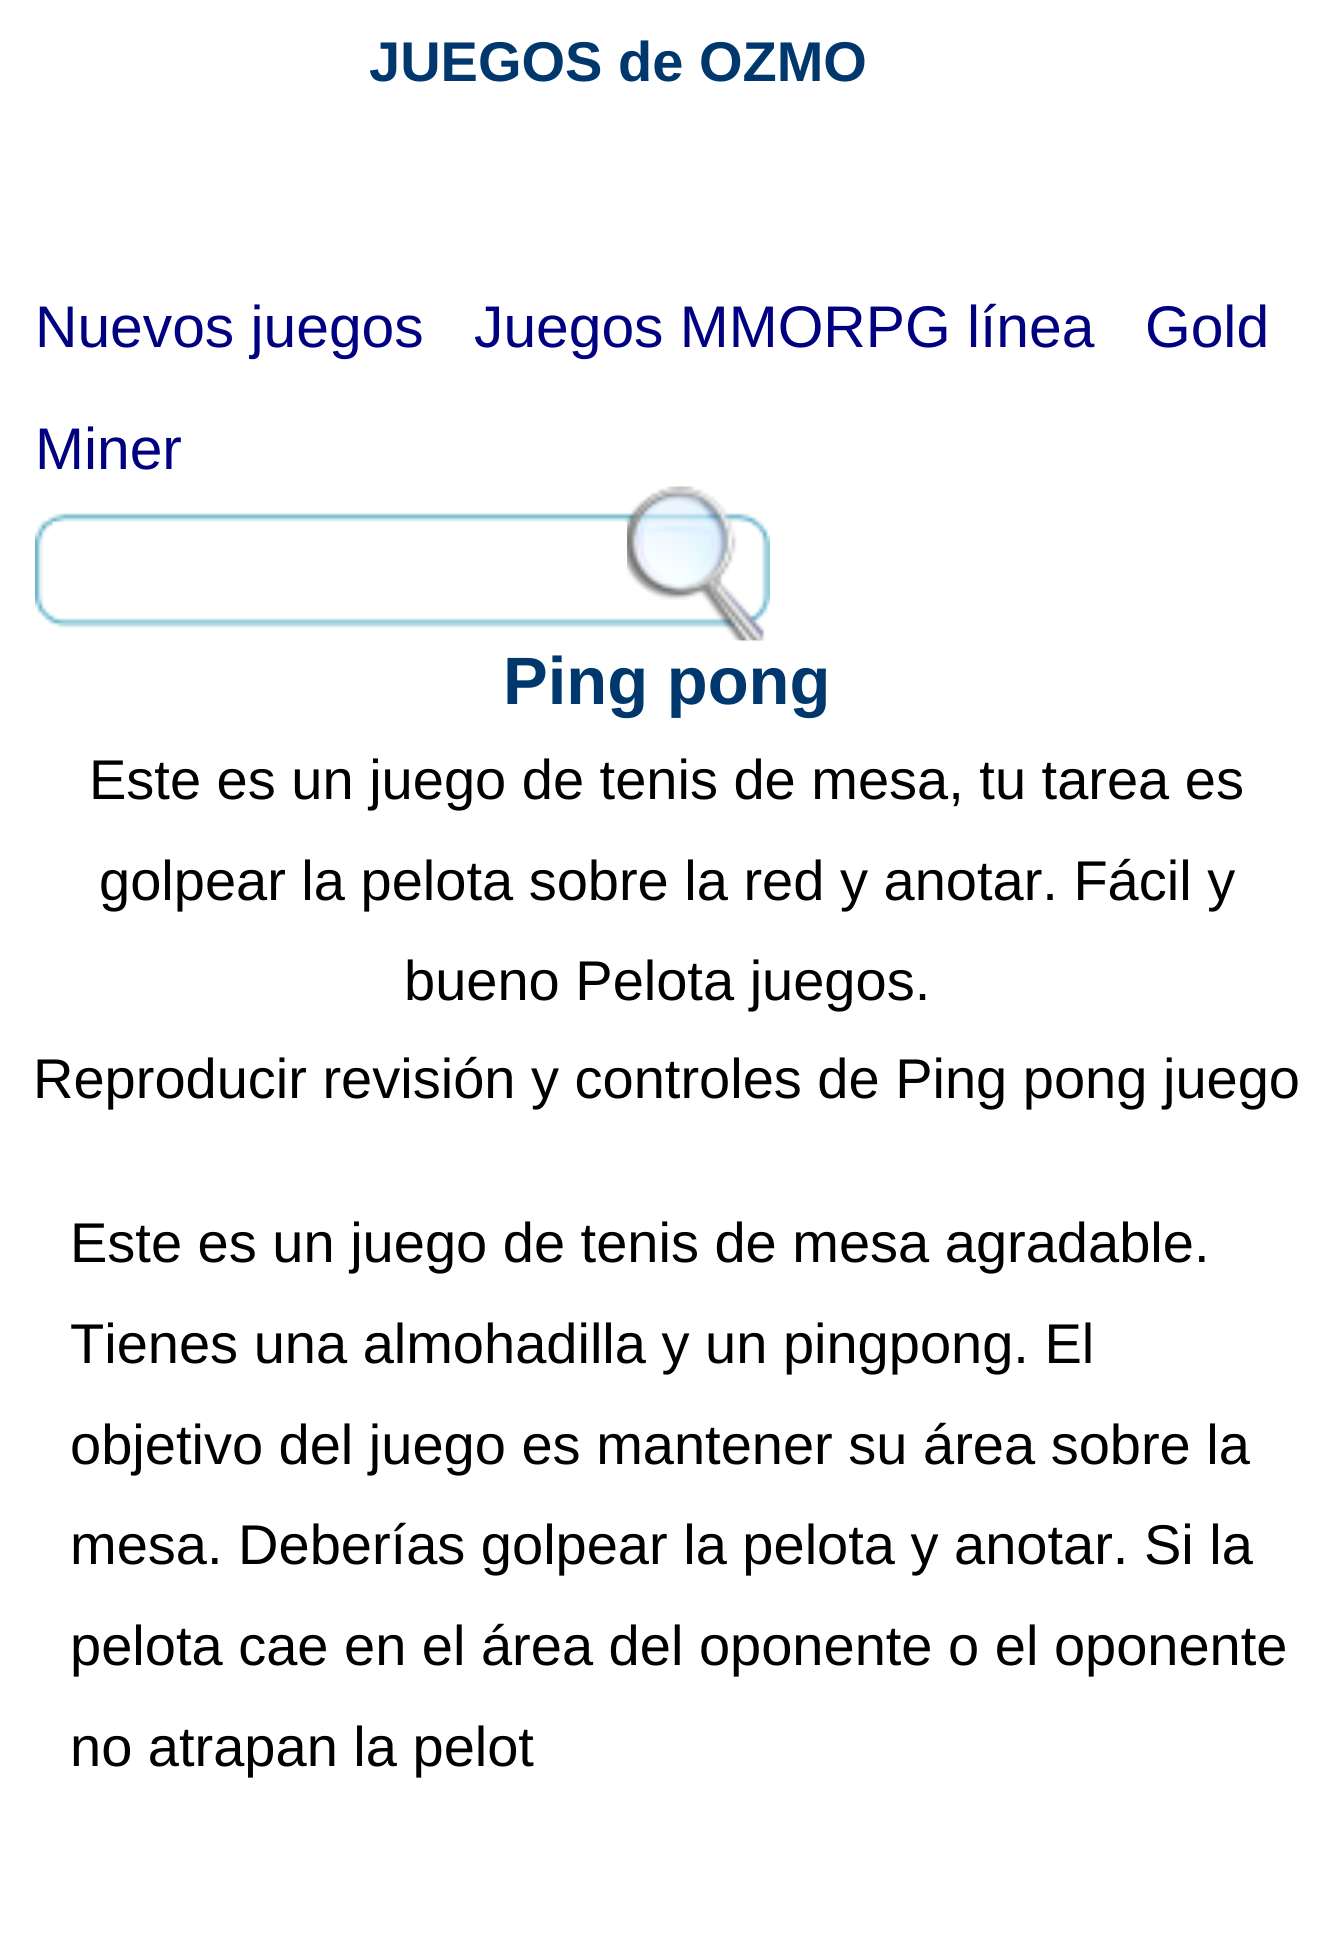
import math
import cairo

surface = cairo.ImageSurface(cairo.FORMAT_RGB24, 1333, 1941)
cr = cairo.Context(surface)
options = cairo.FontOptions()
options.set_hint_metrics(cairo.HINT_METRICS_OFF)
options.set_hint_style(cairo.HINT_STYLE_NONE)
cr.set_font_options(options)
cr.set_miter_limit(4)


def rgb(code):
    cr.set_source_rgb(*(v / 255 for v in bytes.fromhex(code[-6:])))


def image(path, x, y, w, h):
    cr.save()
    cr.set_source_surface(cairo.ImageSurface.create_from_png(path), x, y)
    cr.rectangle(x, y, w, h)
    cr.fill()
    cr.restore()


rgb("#ffffff")
cr.paint()
image("img/1.png", 35, 486, 735, 155)
rgb("#ffffff")
cr.rectangle(53, 522, 574, 51)
cr.fill()
cr.select_font_face("Liberation Sans", cairo.FONT_SLANT_NORMAL, cairo.FONT_WEIGHT_BOLD)
cr.set_font_size(56)
rgb("#00386e")
cr.move_to(369, 81)
cr.show_text("JUEGOS de OZMO")
cr.select_font_face("Liberation Sans")
cr.set_font_size(58.75)
rgb("#000080")
for x, y, s in [
    (35, 347, "Nuevos juegos"),
    (474, 347, "Juegos MMORPG línea"),
    (1145, 347, "Gold"),
    (35, 469, "Miner"),
]:
    cr.move_to(x, y)
    cr.show_text(s)
cr.select_font_face("Liberation Sans", cairo.FONT_SLANT_NORMAL, cairo.FONT_WEIGHT_BOLD)
cr.set_font_size(67)
rgb("#00386e")
cr.move_to(503, 704)
cr.show_text("Ping pong")
cr.select_font_face("Liberation Sans")
cr.set_font_size(56)
rgb("#000000")
for x, y, s in [
    (89, 799, "Este es un juego de tenis de mesa, tu tarea es"),
    (99, 900, "golpear la pelota sobre la red y anotar. Fácil y"),
    (404, 1000, "bueno Pelota juegos."),
    (33, 1098, "Reproducir revisión y controles de Ping pong juego"),
    (70, 1262, "Este es un juego de tenis de mesa agradable."),
    (70, 1363, "Tienes una almohadilla y un pingpong. El"),
    (70, 1464, "objetivo del juego es mantener su área sobre la"),
    (70, 1564, "mesa. Deberías golpear la pelota y anotar. Si la"),
    (70, 1665, "pelota cae en el área del oponente o el oponente"),
    (70, 1766, "no atrapan la pelot"),
]:
    cr.move_to(x, y)
    cr.show_text(s)
surface.write_to_png("page.png")
